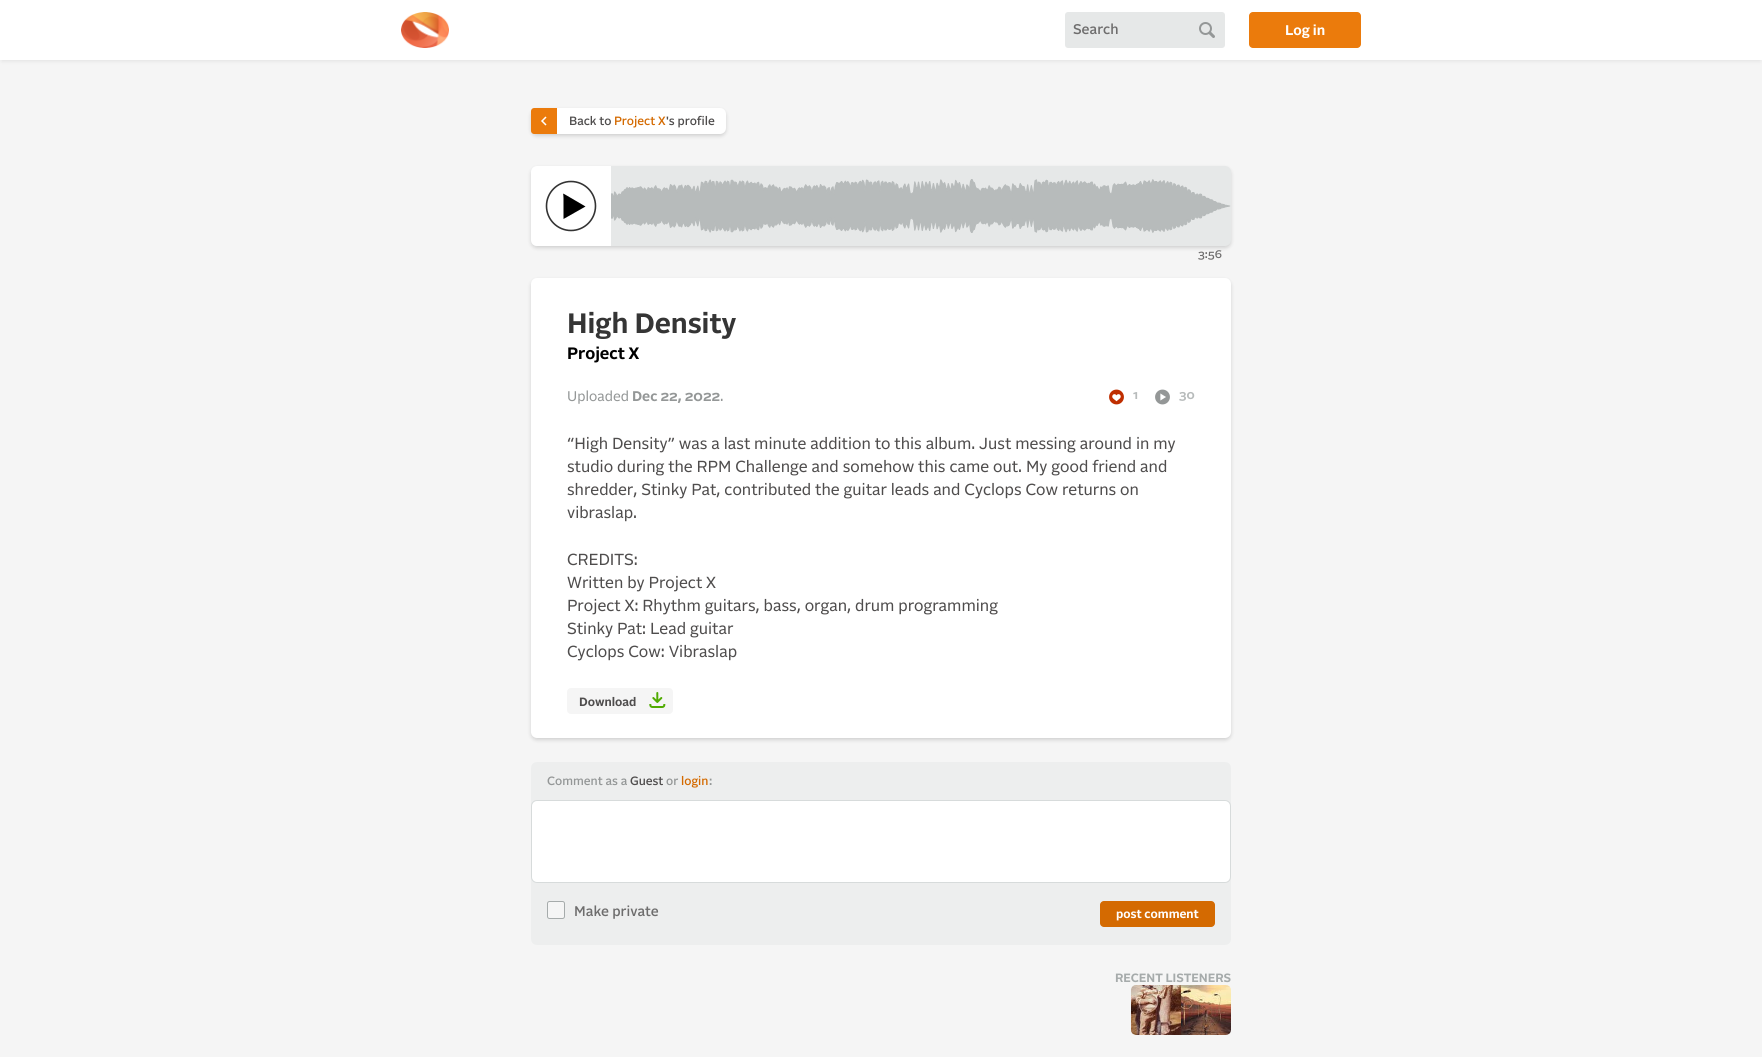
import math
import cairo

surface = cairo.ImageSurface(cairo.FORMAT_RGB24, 1762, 1057)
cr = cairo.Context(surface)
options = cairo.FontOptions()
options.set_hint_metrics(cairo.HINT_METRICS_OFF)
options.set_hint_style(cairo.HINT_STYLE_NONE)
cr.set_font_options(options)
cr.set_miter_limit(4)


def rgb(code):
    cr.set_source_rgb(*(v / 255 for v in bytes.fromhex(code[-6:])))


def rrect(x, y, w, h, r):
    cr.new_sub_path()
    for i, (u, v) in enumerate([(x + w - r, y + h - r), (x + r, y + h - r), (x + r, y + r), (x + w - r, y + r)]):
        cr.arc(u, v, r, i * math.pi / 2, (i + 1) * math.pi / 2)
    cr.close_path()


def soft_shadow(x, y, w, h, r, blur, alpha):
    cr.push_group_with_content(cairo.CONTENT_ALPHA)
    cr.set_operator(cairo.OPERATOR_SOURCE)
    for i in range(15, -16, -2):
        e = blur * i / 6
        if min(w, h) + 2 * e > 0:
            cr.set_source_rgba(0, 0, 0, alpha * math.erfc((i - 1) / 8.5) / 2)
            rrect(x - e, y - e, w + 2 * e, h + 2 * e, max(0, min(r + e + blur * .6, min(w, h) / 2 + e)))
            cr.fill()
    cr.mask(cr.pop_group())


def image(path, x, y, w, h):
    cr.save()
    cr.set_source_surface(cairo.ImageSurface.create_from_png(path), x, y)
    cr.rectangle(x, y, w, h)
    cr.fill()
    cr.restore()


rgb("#f5f5f5")
cr.paint()
rgb("#656666")
soft_shadow(2, 5, 1758, 56, 0, 2, 0.15)
rgb("#ffffff")
cr.rectangle(0, 0, 1762, 60)
cr.fill()
image("img/1.png", 401, 12, 48, 36)
rgb("#e6e8e8")
rrect(1065, 12, 160, 36, 3)
cr.fill()
cr.new_path()
cr.move_to(1210, 33)
cr.line_to(1213.5, 36.5)
rgb("#949797")
cr.set_line_width(3)
cr.set_line_cap(cairo.LINE_CAP_ROUND)
cr.stroke()
cr.arc(1205.5, 28.5, 5.5, 0, 2 * math.pi)
cr.set_line_width(2)
cr.set_line_cap(cairo.LINE_CAP_BUTT)
cr.stroke()
rgb("#eb7b0c")
rrect(1249, 12, 112, 36, 4)
cr.fill()
rgb("#000000")
soft_shadow(531, 110, 195, 26, 6, 2, 0.15)
rgb("#ffffff")
rrect(531, 108, 195, 26, 6)
cr.fill()
rgb("#eb7b0c")
cr.new_path()
cr.move_to(534, 108)
cr.line_to(557, 108)
cr.line_to(557, 134)
cr.line_to(534, 134)
cr.curve_to(532.5, 134, 531, 132.5, 531, 131)
cr.line_to(531, 111)
cr.curve_to(531, 109.5, 532.5, 108, 534, 108)
cr.close_path()
cr.fill()
cr.new_path()
cr.move_to(546, 125)
cr.line_to(542, 121)
cr.line_to(546, 117)
rgb("#ffffff")
cr.set_line_width(1.5)
cr.stroke()
rgb("#000000")
soft_shadow(531, 168, 700, 80, 6, 2, 0.15)
rgb("#e6e8e8")
rrect(531, 166, 700, 80, 6)
cr.fill()
rgb("#ffffff")
cr.new_path()
cr.move_to(537, 166)
cr.line_to(611, 166)
cr.line_to(611, 246)
cr.line_to(537, 246)
cr.curve_to(533.5, 246, 531, 243.5, 531, 240)
cr.line_to(531, 172)
cr.curve_to(531, 168.5, 533.5, 166, 537, 166)
cr.close_path()
cr.fill()
cr.arc(571, 206, 24.5, 0, 2 * math.pi)
rgb("#333333")
cr.set_line_width(1.6)
cr.stroke()
rgb("#000000")
cr.new_path()
cr.move_to(563.5, 219)
cr.line_to(563.5, 198)
cr.curve_to(563.5, 193, 562, 193, 565, 194.5)
cr.line_to(585.5, 206.5)
cr.close_path()
cr.fill()
image("img/2.png", 611, 179, 620, 54)
rgb("#000000")
soft_shadow(531, 280, 700, 460, 6, 2, 0.15)
rgb("#ffffff")
rrect(531, 278, 700, 460, 6)
cr.fill()
image("img/3.png", 1109, 389, 15, 16)
image("img/4.png", 1155, 389, 15, 16)
rgb("#f5f5f5")
rrect(567, 688, 106, 26, 4)
cr.fill()
image("img/5.png", 649, 692, 17, 16)
rgb("#edeeee")
rrect(531, 762, 700, 183, 6)
cr.fill()
rgb("#ffffff")
rrect(531.5, 800.5, 699, 82, 5.5)
cr.fill_preserve()
rgb("#d7dbdb")
cr.set_line_width(1)
cr.stroke()
rgb("#f5f5f5")
rrect(547.5, 901.5, 17, 17, 2)
cr.fill_preserve()
rgb("#a6abab")
cr.stroke()
rgb("#d46a01")
rrect(1100, 901, 115, 26, 4)
cr.fill()
image("img/6.png", 1131, 985, 50, 50)
image("img/7.png", 1181, 985, 50, 50)
cr.select_font_face("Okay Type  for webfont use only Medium")
cr.set_font_size(14)
rgb("#6e6d6d")
cr.move_to(1073, 34)
cr.show_text("Search")
cr.select_font_face("Okay Type  for webfont use only", cairo.FONT_SLANT_NORMAL, cairo.FONT_WEIGHT_BOLD)
rgb("#ffffff")
cr.move_to(1285, 35)
cr.show_text("Log in")
cr.select_font_face("Okay Type  for webfont use only Medium")
cr.set_font_size(12)
rgb("#4f4d4d")
cr.move_to(569, 125)
cr.show_text("Back to")
rgb("#d46a01")
cr.move_to(614, 125)
cr.show_text("Project X")
rgb("#4f4d4d")
cr.move_to(666, 125)
cr.show_text("'s profile")
cr.set_font_size(11)
rgb("#6e6d6d")
cr.move_to(1198, 258)
cr.show_text("3:56")
cr.select_font_face("Okay Type  for webfont use only", cairo.FONT_SLANT_NORMAL, cairo.FONT_WEIGHT_BOLD)
cr.set_font_size(28)
rgb("#353535")
cr.move_to(567, 333)
cr.show_text("High Density")
cr.set_font_size(16.5)
rgb("#000000")
cr.move_to(567, 359)
cr.show_text("Project X")
cr.select_font_face("Okay Type  for webfont use only")
cr.set_font_size(14)
rgb("#949797")
cr.move_to(567, 401)
cr.show_text("Uploaded")
cr.select_font_face("Okay Type  for webfont use only", cairo.FONT_SLANT_NORMAL, cairo.FONT_WEIGHT_BOLD)
cr.move_to(632, 401)
cr.show_text("Dec 22, 2022")
cr.select_font_face("Okay Type  for webfont use only")
cr.move_to(720, 401)
cr.show_text(".")
cr.select_font_face("Okay Type  for webfont use only", cairo.FONT_SLANT_NORMAL, cairo.FONT_WEIGHT_BOLD)
cr.set_font_size(12)
rgb("#b7bbbb")
cr.move_to(1133, 399)
cr.show_text("1")
cr.move_to(1179, 399)
cr.show_text("30")
cr.select_font_face("Okay Type  for webfont use only")
cr.set_font_size(16)
rgb("#4f4d4d")
for x, y, s in [
    (567, 449, "“High Density” was a last minute addition to this album. Just messing around in my"),
    (567, 472, "studio during the RPM Challenge and somehow this came out. My good friend and"),
    (567, 495, "shredder, Stinky Pat, contributed the guitar leads and Cyclops Cow returns on"),
    (567, 518, "vibraslap."),
    (567, 565, "CREDITS:"),
    (567, 588, "Written by Project X"),
    (567, 611, "Project X: Rhythm guitars, bass, organ, drum programming"),
    (567, 634, "Stinky Pat: Lead guitar"),
    (567, 657, "Cyclops Cow: Vibraslap"),
]:
    cr.move_to(x, y)
    cr.show_text(s)
cr.select_font_face("Okay Type  for webfont use only", cairo.FONT_SLANT_NORMAL, cairo.FONT_WEIGHT_BOLD)
cr.set_font_size(12)
cr.move_to(579, 706)
cr.show_text("Download")
cr.select_font_face("Okay Type  for webfont use only Medium")
rgb("#949797")
cr.move_to(547, 785)
cr.show_text("Comment as a")
rgb("#4f4d4d")
cr.move_to(630, 785)
cr.show_text("Guest")
rgb("#949797")
cr.move_to(666, 785)
cr.show_text("or")
rgb("#d46a01")
cr.move_to(681, 785)
cr.show_text("login")
rgb("#949797")
cr.move_to(709, 785)
cr.show_text(":")
cr.set_font_size(14)
rgb("#6e6d6d")
cr.move_to(574, 916)
cr.show_text("Make private")
cr.select_font_face("Okay Type  for webfont use only", cairo.FONT_SLANT_NORMAL, cairo.FONT_WEIGHT_BOLD)
cr.set_font_size(12)
rgb("#ffffff")
cr.move_to(1116, 918)
cr.show_text("post comment")
rgb("#a6abab")
cr.move_to(1115, 982)
cr.show_text("RECENT LISTENERS")
surface.write_to_png("page.png")
